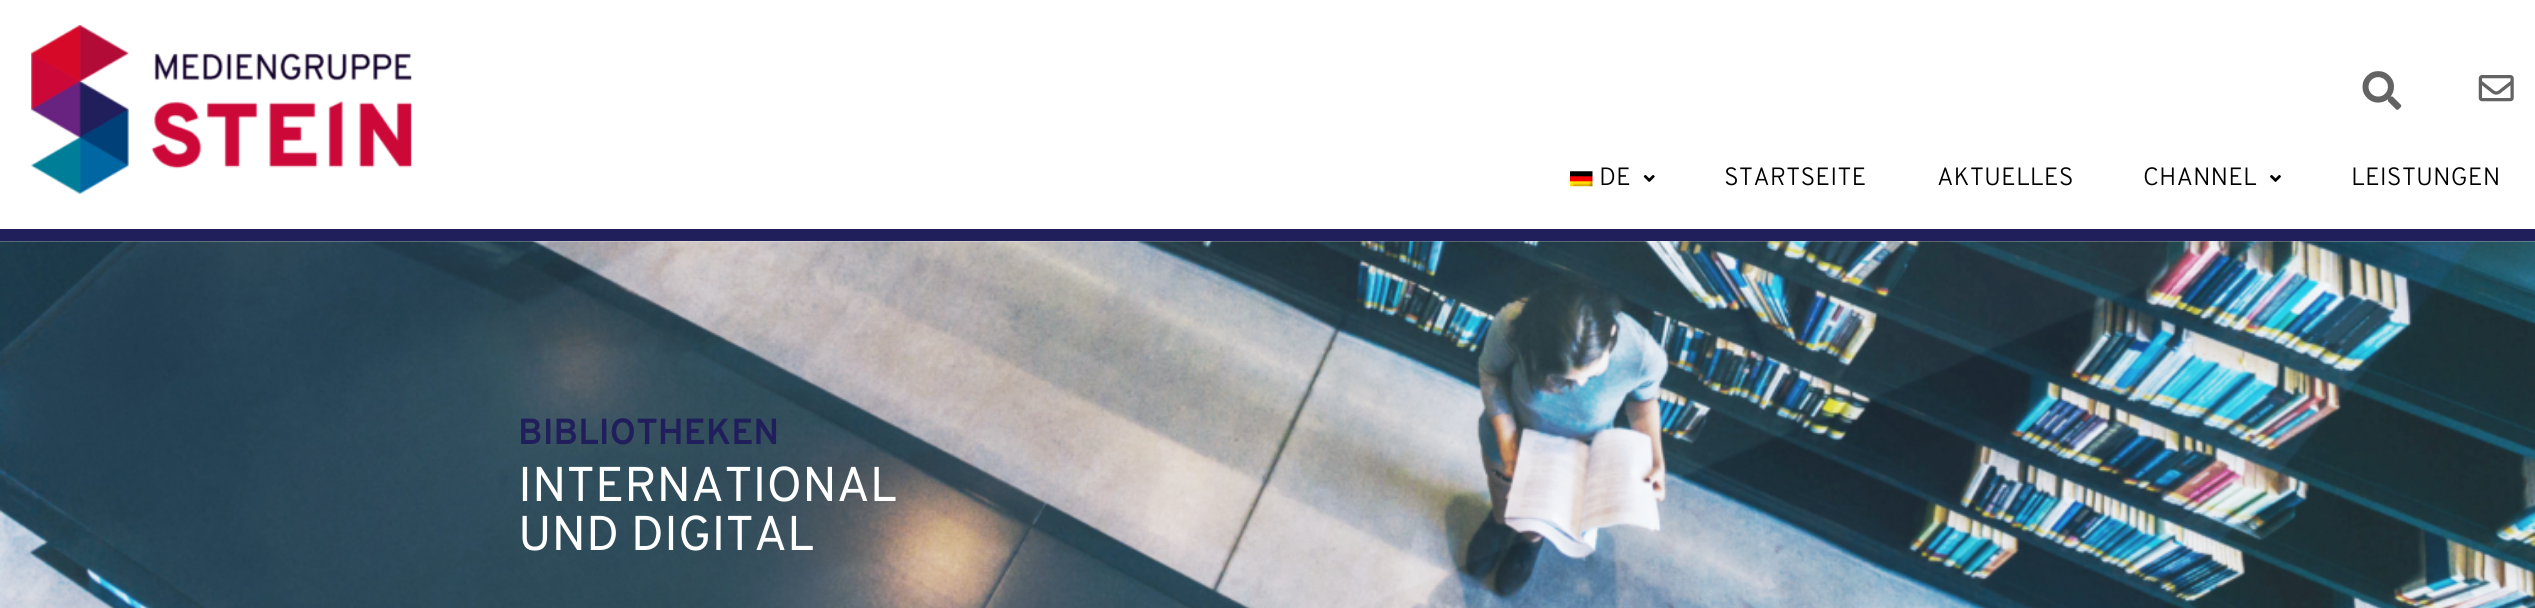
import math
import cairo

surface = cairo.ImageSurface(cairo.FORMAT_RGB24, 2535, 608)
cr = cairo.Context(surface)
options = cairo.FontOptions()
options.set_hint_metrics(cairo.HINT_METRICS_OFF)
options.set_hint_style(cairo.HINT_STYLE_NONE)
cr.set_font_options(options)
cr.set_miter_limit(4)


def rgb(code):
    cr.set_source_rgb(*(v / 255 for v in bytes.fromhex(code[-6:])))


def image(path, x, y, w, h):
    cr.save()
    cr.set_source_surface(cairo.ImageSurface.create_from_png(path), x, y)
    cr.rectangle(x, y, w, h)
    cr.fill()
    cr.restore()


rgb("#ffffff")
cr.paint()
image("img/1.png", 31, 25, 381, 169)
image("img/2.png", 2362, 71, 40, 39)
image("img/3.png", 2478, 75, 36, 27)
image("img/4.png", 1570, 171, 23, 16)
image("img/5.png", 1643, 175, 12, 7)
image("img/6.png", 2270, 175, 11, 7)
rgb("#201f5b")
cr.rectangle(0, 229, 2535, 12)
cr.fill()
image("img/7.png", 0, 241, 2535, 367)
cr.select_font_face("Overpass Light")
cr.set_font_size(25)
rgb("#000000")
for x, y, s in [
    (1599, 185, "DE"),
    (1724, 185, "STARTSEITE"),
    (1937, 185, "AKTUELLES"),
    (2143, 185, "CHANNEL"),
    (2351, 185, "LEISTUNGEN"),
]:
    cr.move_to(x, y)
    cr.show_text(s)
cr.select_font_face("Overpass", cairo.FONT_SLANT_NORMAL, cairo.FONT_WEIGHT_BOLD)
cr.set_font_size(36.25)
rgb("#201f5b")
cr.move_to(518, 444)
cr.show_text("BIBLIOTHEKEN")
cr.select_font_face("Overpass")
cr.set_font_size(48.75)
rgb("#ffffff")
cr.move_to(518, 501)
cr.show_text("INTERNATIONAL")
cr.move_to(518, 550)
cr.show_text("UND DIGITAL")
surface.write_to_png("page.png")
